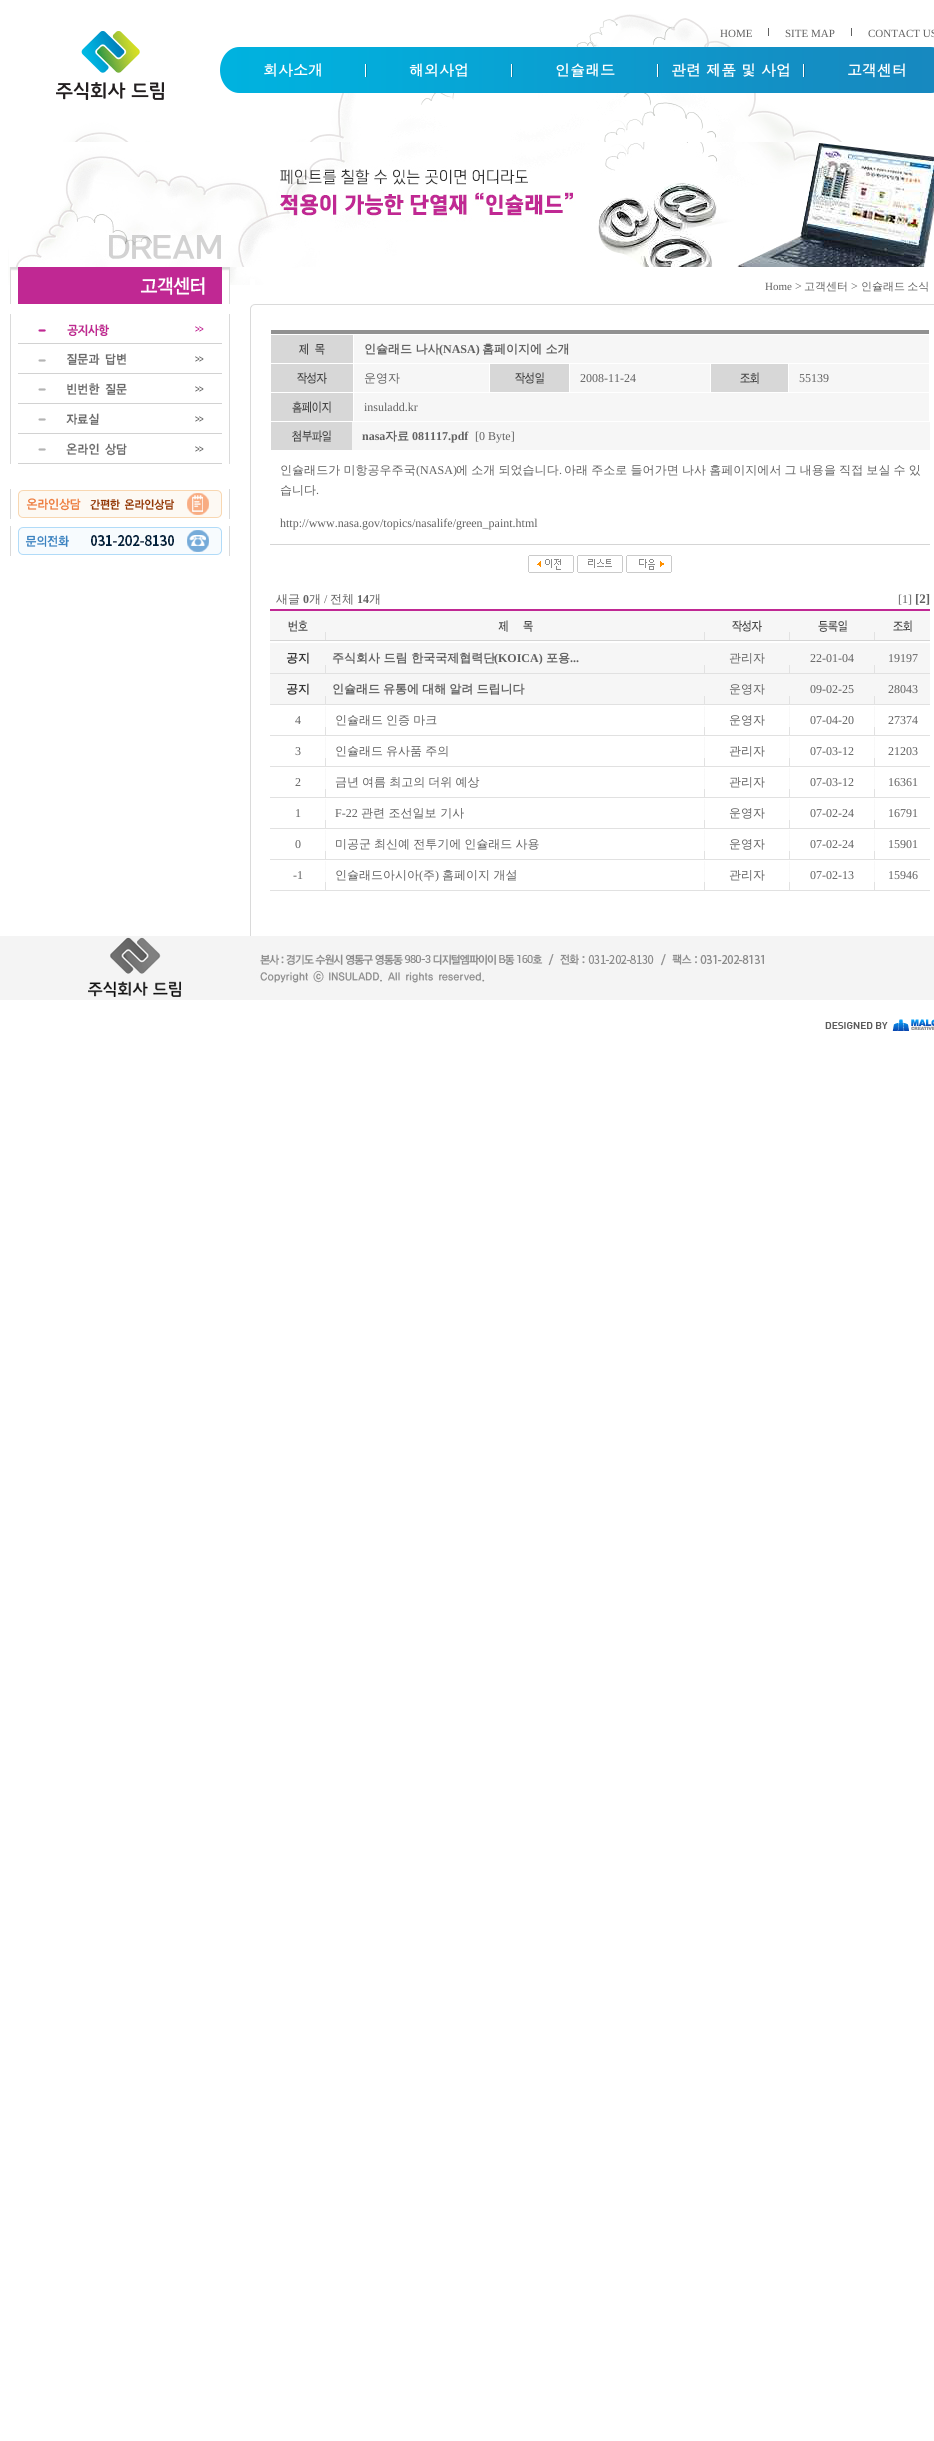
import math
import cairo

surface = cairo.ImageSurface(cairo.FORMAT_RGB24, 934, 2441)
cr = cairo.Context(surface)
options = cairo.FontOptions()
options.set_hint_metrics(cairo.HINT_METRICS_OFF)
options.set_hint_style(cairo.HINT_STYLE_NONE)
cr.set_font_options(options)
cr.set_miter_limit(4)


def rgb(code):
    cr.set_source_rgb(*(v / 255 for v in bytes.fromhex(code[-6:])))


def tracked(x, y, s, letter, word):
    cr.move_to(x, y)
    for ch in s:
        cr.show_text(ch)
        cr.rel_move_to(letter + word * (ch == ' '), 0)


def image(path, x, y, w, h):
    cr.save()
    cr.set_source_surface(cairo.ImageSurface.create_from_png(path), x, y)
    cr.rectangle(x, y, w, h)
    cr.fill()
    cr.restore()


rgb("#ffffff")
cr.paint()
image("img/1.png", 8, 14, 855, 271)
image("img/2.png", 56, 31, 108, 69)
rgb("#616161")
cr.rectangle(768, 28, 1, 8)
cr.fill()
cr.rectangle(851, 28, 1, 8)
cr.fill()
image("img/3.png", 220, 47, 714, 46)
image("img/4.png", 9, 142, 925, 125)
image("img/5.png", 10, 267, 220, 37)
image("img/6.png", 10, 314, 220, 30)
image("img/7.png", 10, 344, 220, 30)
image("img/8.png", 10, 374, 220, 30)
image("img/9.png", 10, 404, 220, 30)
image("img/10.png", 10, 434, 220, 30)
image("img/11.png", 10, 489, 220, 30)
image("img/12.png", 10, 526, 220, 30)
rgb("#ffffff")
cr.rectangle(250, 279, 5, 6)
cr.fill()
image("img/13.png", 250, 304, 684, 10)
for x, y, w, h, color in [
    (250, 314, 1, 622, "#dadada"),
    (271, 330, 658, 4, "#919191"),
    (271, 335, 82, 28, "#d7d7d7"),
]:
    rgb(color)
    cr.rectangle(x, y, w, h)
    cr.fill()
image("img/14.png", 299, 343, 26, 12)
rgb("#f6f6f6")
cr.rectangle(354, 335, 575, 28)
cr.fill()
rgb("#d7d7d7")
cr.rectangle(271, 364, 82, 28)
cr.fill()
image("img/15.png", 297, 372, 30, 12)
rgb("#f6f6f6")
cr.rectangle(354, 364, 135, 28)
cr.fill()
rgb("#d7d7d7")
cr.rectangle(490, 364, 79, 28)
cr.fill()
image("img/16.png", 515, 372, 29, 12)
rgb("#f6f6f6")
cr.rectangle(570, 364, 140, 28)
cr.fill()
rgb("#d7d7d7")
cr.rectangle(711, 364, 77, 28)
cr.fill()
image("img/17.png", 740, 372, 19, 12)
rgb("#f6f6f6")
cr.rectangle(789, 364, 140, 28)
cr.fill()
rgb("#d7d7d7")
cr.rectangle(271, 393, 82, 28)
cr.fill()
image("img/18.png", 292, 401, 39, 12)
rgb("#f6f6f6")
cr.rectangle(354, 393, 575, 28)
cr.fill()
rgb("#d7d7d7")
cr.rectangle(271, 422, 81, 28)
cr.fill()
image("img/19.png", 292, 430, 39, 12)
rgb("#f6f6f6")
cr.rectangle(352, 422, 578, 28)
cr.fill()
rgb("#d5d5d5")
cr.rectangle(270, 544, 660, 1)
cr.fill()
image("img/20.png", 528, 555, 46, 18)
image("img/21.png", 577, 555, 46, 18)
image("img/22.png", 626, 555, 46, 18)
rgb("#c02893")
cr.rectangle(270, 609, 660, 2)
cr.fill()
rgb("#f6f6f6")
cr.rectangle(270, 611, 660, 29)
cr.fill()
image("img/23.png", 288, 620, 20, 12)
image("img/24.png", 498, 620, 35, 12)
image("img/25.png", 732, 620, 30, 12)
image("img/26.png", 818, 620, 29, 12)
image("img/27.png", 893, 620, 19, 12)
for x, y, w, h, color in [
    (325, 632, 1, 8, "#e2e2e2"),
    (704, 632, 1, 8, "#e2e2e2"),
    (789, 632, 1, 8, "#e2e2e2"),
    (874, 632, 1, 8, "#e2e2e2"),
    (270, 640, 660, 1, "#d5d5d5"),
    (270, 643, 660, 30, "#f6f6f6"),
    (325, 665, 1, 8, "#e2e2e2"),
    (704, 665, 1, 8, "#e2e2e2"),
    (789, 665, 1, 8, "#e2e2e2"),
    (874, 665, 1, 8, "#e2e2e2"),
    (270, 673, 660, 1, "#e1e1e1"),
    (270, 674, 660, 30, "#f6f6f6"),
    (325, 696, 1, 8, "#e2e2e2"),
    (704, 696, 1, 8, "#e2e2e2"),
    (789, 696, 1, 8, "#e2e2e2"),
    (874, 696, 1, 8, "#e2e2e2"),
    (270, 704, 660, 1, "#e1e1e1"),
]:
    rgb(color)
    cr.rectangle(x, y, w, h)
    cr.fill()
image("img/28.png", 325, 706, 1, 29)
image("img/28.png", 704, 706, 1, 29)
image("img/28.png", 789, 706, 1, 29)
image("img/28.png", 874, 706, 1, 29)
cr.rectangle(270, 735, 660, 1)
cr.fill()
image("img/28.png", 325, 737, 1, 29)
image("img/28.png", 704, 737, 1, 29)
image("img/28.png", 789, 737, 1, 29)
image("img/28.png", 874, 737, 1, 29)
cr.rectangle(270, 766, 660, 1)
cr.fill()
image("img/28.png", 325, 768, 1, 29)
image("img/28.png", 704, 768, 1, 29)
image("img/28.png", 789, 768, 1, 29)
image("img/28.png", 874, 768, 1, 29)
cr.rectangle(270, 797, 660, 1)
cr.fill()
image("img/28.png", 325, 799, 1, 29)
image("img/28.png", 704, 799, 1, 29)
image("img/28.png", 789, 799, 1, 29)
image("img/28.png", 874, 799, 1, 29)
cr.rectangle(270, 828, 660, 1)
cr.fill()
image("img/28.png", 325, 830, 1, 29)
image("img/28.png", 704, 830, 1, 29)
image("img/28.png", 789, 830, 1, 29)
image("img/28.png", 874, 830, 1, 29)
cr.rectangle(270, 859, 660, 1)
cr.fill()
image("img/28.png", 325, 861, 1, 29)
image("img/28.png", 704, 861, 1, 29)
image("img/28.png", 789, 861, 1, 29)
image("img/28.png", 874, 861, 1, 29)
cr.rectangle(270, 890, 660, 1)
cr.fill()
rgb("#f4f4f4")
cr.rectangle(0, 936, 934, 64)
cr.fill()
image("img/29.png", 88, 937, 676, 60)
image("img/30.png", 825, 1019, 109, 12)
cr.select_font_face("Liberation Serif")
cr.set_font_size(11)
rgb("#616161")
for x, y, s in [
    (720, 37, "HOME"),
    (785, 37, "SITE MAP"),
    (868, 37, "CONTACT US"),
]:
    cr.move_to(x, y)
    cr.show_text(s)
cr.select_font_face("Dotum", cairo.FONT_SLANT_NORMAL, cairo.FONT_WEIGHT_BOLD)
cr.set_font_size(15)
rgb("#ffffff")
for x, y, s in [
    (263, 76, "회사소개"),
    (409, 76, "해외사업"),
    (555, 76, "인슐래드"),
    (671, 76, "관련 제품 및 사업"),
    (847, 76, "고객센터"),
]:
    cr.move_to(x, y)
    cr.show_text(s)
cr.select_font_face("Liberation Serif")
cr.set_font_size(11)
rgb("#616161")
cr.move_to(765, 290)
cr.show_text("Home")
cr.set_font_size(12)
cr.move_to(795, 290)
cr.show_text(">")
cr.select_font_face("WenQuanYi Zen Hei Medium")
cr.set_font_size(11)
cr.move_to(804, 290)
cr.show_text("고객센터")
cr.select_font_face("Liberation Serif")
cr.set_font_size(12)
cr.move_to(851, 290)
cr.show_text(">")
cr.select_font_face("WenQuanYi Zen Hei Medium")
cr.set_font_size(11)
tracked(861, 290, "인슐래드 소식", 0, -1)
cr.select_font_face("WenQuanYi Zen Hei", cairo.FONT_SLANT_NORMAL, cairo.FONT_WEIGHT_BOLD)
cr.set_font_size(12)
cr.move_to(364, 353)
cr.show_text("인슐래드 나사")
cr.select_font_face("Liberation Serif", cairo.FONT_SLANT_NORMAL, cairo.FONT_WEIGHT_BOLD)
cr.move_to(439, 353)
cr.show_text("(NASA)")
cr.select_font_face("WenQuanYi Zen Hei", cairo.FONT_SLANT_NORMAL, cairo.FONT_WEIGHT_BOLD)
cr.move_to(482, 353)
cr.show_text("홈페이지에 소개")
cr.select_font_face("WenQuanYi Zen Hei Medium")
cr.move_to(364, 382)
cr.show_text("운영자")
cr.select_font_face("Liberation Serif")
for x, y, s in [
    (580, 382, "2008-11-24"),
    (799, 382, "55139"),
    (364, 411, "insuladd.kr"),
]:
    cr.move_to(x, y)
    cr.show_text(s)
cr.select_font_face("Liberation Serif", cairo.FONT_SLANT_NORMAL, cairo.FONT_WEIGHT_BOLD)
cr.move_to(362, 440)
cr.show_text("nasa")
cr.select_font_face("WenQuanYi Zen Hei", cairo.FONT_SLANT_NORMAL, cairo.FONT_WEIGHT_BOLD)
cr.move_to(385, 440)
cr.show_text("자료")
cr.select_font_face("Liberation Serif", cairo.FONT_SLANT_NORMAL, cairo.FONT_WEIGHT_BOLD)
cr.move_to(412, 440)
cr.show_text("081117.pdf")
cr.select_font_face("Liberation Serif")
cr.move_to(475, 440)
cr.show_text("[0 Byte]")
cr.select_font_face("WenQuanYi Zen Hei Medium")
tracked(280, 474, "인슐래드가 미항공우주국", 0.05, -0.5)
cr.select_font_face("Liberation Serif")
tracked(416, 474, "(NASA)", 0.05, 0)
cr.select_font_face("WenQuanYi Zen Hei Medium")
tracked(456, 474, "에 소개 되었습니다", 0.05, -0.5)
cr.select_font_face("Liberation Serif")
tracked(559, 474, ".", 0.05, 0)
cr.select_font_face("WenQuanYi Zen Hei Medium")
tracked(564, 474, "아래 주소로 들어가면 나사 홈페이지에서 그 내용을 직접 보실 수 있", 0.05, -0.5)
cr.move_to(280, 494)
cr.show_text("습니다")
cr.select_font_face("Liberation Serif")
cr.move_to(316, 494)
cr.show_text(".")
cr.move_to(280, 527)
cr.show_text("http://www.nasa.gov/topics/nasalife/green_paint.html")
cr.select_font_face("WenQuanYi Zen Hei Medium")
cr.move_to(276, 603)
cr.show_text("새글")
cr.select_font_face("Liberation Serif", cairo.FONT_SLANT_NORMAL, cairo.FONT_WEIGHT_BOLD)
cr.move_to(303, 603)
cr.show_text("0")
cr.select_font_face("WenQuanYi Zen Hei Medium")
cr.move_to(309, 603)
cr.show_text("개")
cr.select_font_face("Liberation Serif")
cr.move_to(324, 603)
cr.show_text("/")
cr.select_font_face("WenQuanYi Zen Hei Medium")
cr.move_to(330, 603)
cr.show_text("전체")
cr.select_font_face("Liberation Serif", cairo.FONT_SLANT_NORMAL, cairo.FONT_WEIGHT_BOLD)
cr.move_to(357, 603)
cr.show_text("14")
cr.select_font_face("WenQuanYi Zen Hei Medium")
cr.move_to(369, 603)
cr.show_text("개")
cr.select_font_face("Liberation Serif")
cr.move_to(898, 603)
cr.show_text("[1]")
cr.select_font_face("Liberation Serif", cairo.FONT_SLANT_NORMAL, cairo.FONT_WEIGHT_BOLD)
cr.set_font_size(13)
cr.move_to(915, 603)
cr.show_text("[2]")
cr.select_font_face("WenQuanYi Zen Hei", cairo.FONT_SLANT_NORMAL, cairo.FONT_WEIGHT_BOLD)
cr.set_font_size(12)
rgb("#333333")
cr.move_to(286, 662)
cr.show_text("공지")
rgb("#616161")
cr.move_to(332, 662)
cr.show_text("주식회사 드림 한국국제협력단")
cr.select_font_face("Liberation Serif", cairo.FONT_SLANT_NORMAL, cairo.FONT_WEIGHT_BOLD)
cr.move_to(494, 662)
cr.show_text("(KOICA)")
cr.select_font_face("WenQuanYi Zen Hei", cairo.FONT_SLANT_NORMAL, cairo.FONT_WEIGHT_BOLD)
cr.move_to(546, 662)
cr.show_text("포용")
cr.select_font_face("Liberation Serif", cairo.FONT_SLANT_NORMAL, cairo.FONT_WEIGHT_BOLD)
cr.move_to(570, 662)
cr.show_text("...")
cr.select_font_face("WenQuanYi Zen Hei Medium")
cr.move_to(729, 662)
cr.show_text("관리자")
cr.select_font_face("Liberation Serif")
cr.move_to(810, 662)
cr.show_text("22-01-04")
cr.move_to(888, 662)
cr.show_text("19197")
cr.select_font_face("WenQuanYi Zen Hei", cairo.FONT_SLANT_NORMAL, cairo.FONT_WEIGHT_BOLD)
rgb("#333333")
cr.move_to(286, 693)
cr.show_text("공지")
rgb("#616161")
tracked(332, 693, "인슐래드 유통에 대해 알려 드립니다", 0, -0.5)
cr.select_font_face("WenQuanYi Zen Hei Medium")
cr.move_to(729, 693)
cr.show_text("운영자")
cr.select_font_face("Liberation Serif")
for x, y, s in [
    (810, 693, "09-02-25"),
    (888, 693, "28043"),
    (295, 724, "4"),
]:
    cr.move_to(x, y)
    cr.show_text(s)
cr.select_font_face("WenQuanYi Zen Hei Medium")
tracked(335, 724, "인슐래드 인증 마크", 0, -0.5)
cr.move_to(729, 724)
cr.show_text("운영자")
cr.select_font_face("Liberation Serif")
for x, y, s in [
    (810, 724, "07-04-20"),
    (888, 724, "27374"),
    (295, 755, "3"),
]:
    cr.move_to(x, y)
    cr.show_text(s)
cr.select_font_face("WenQuanYi Zen Hei Medium")
tracked(335, 755, "인슐래드 유사품 주의", 0, -0.5)
cr.move_to(729, 755)
cr.show_text("관리자")
cr.select_font_face("Liberation Serif")
for x, y, s in [
    (810, 755, "07-03-12"),
    (888, 755, "21203"),
    (295, 786, "2"),
]:
    cr.move_to(x, y)
    cr.show_text(s)
cr.select_font_face("WenQuanYi Zen Hei Medium")
tracked(335, 786, "금년 여름 최고의 더위 예상", 0, -0.5)
cr.move_to(729, 786)
cr.show_text("관리자")
cr.select_font_face("Liberation Serif")
for x, y, s in [
    (810, 786, "07-03-12"),
    (888, 786, "16361"),
    (295, 817, "1"),
    (335, 817, "F-22"),
]:
    cr.move_to(x, y)
    cr.show_text(s)
cr.select_font_face("WenQuanYi Zen Hei Medium")
cr.move_to(361, 817)
cr.show_text("관련 조선일보 기사")
cr.move_to(729, 817)
cr.show_text("운영자")
cr.select_font_face("Liberation Serif")
for x, y, s in [
    (810, 817, "07-02-24"),
    (888, 817, "16791"),
    (295, 848, "0"),
]:
    cr.move_to(x, y)
    cr.show_text(s)
cr.select_font_face("WenQuanYi Zen Hei Medium")
tracked(335, 848, "미공군 최신예 전투기에 인슐래드 사용", 0, -0.5)
cr.move_to(729, 848)
cr.show_text("운영자")
cr.select_font_face("Liberation Serif")
for x, y, s in [
    (810, 848, "07-02-24"),
    (888, 848, "15901"),
    (293, 879, "-1"),
]:
    cr.move_to(x, y)
    cr.show_text(s)
cr.select_font_face("WenQuanYi Zen Hei Medium")
cr.move_to(335, 879)
cr.show_text("인슐래드아시아")
cr.select_font_face("Liberation Serif")
cr.move_to(419, 879)
cr.show_text("(")
cr.select_font_face("WenQuanYi Zen Hei Medium")
cr.move_to(423, 879)
cr.show_text("주")
cr.select_font_face("Liberation Serif")
cr.move_to(435, 879)
cr.show_text(")")
cr.select_font_face("WenQuanYi Zen Hei Medium")
cr.move_to(442, 879)
cr.show_text("홈페이지 개설")
cr.move_to(729, 879)
cr.show_text("관리자")
cr.select_font_face("Liberation Serif")
cr.move_to(810, 879)
cr.show_text("07-02-13")
cr.move_to(888, 879)
cr.show_text("15946")
surface.write_to_png("page.png")
